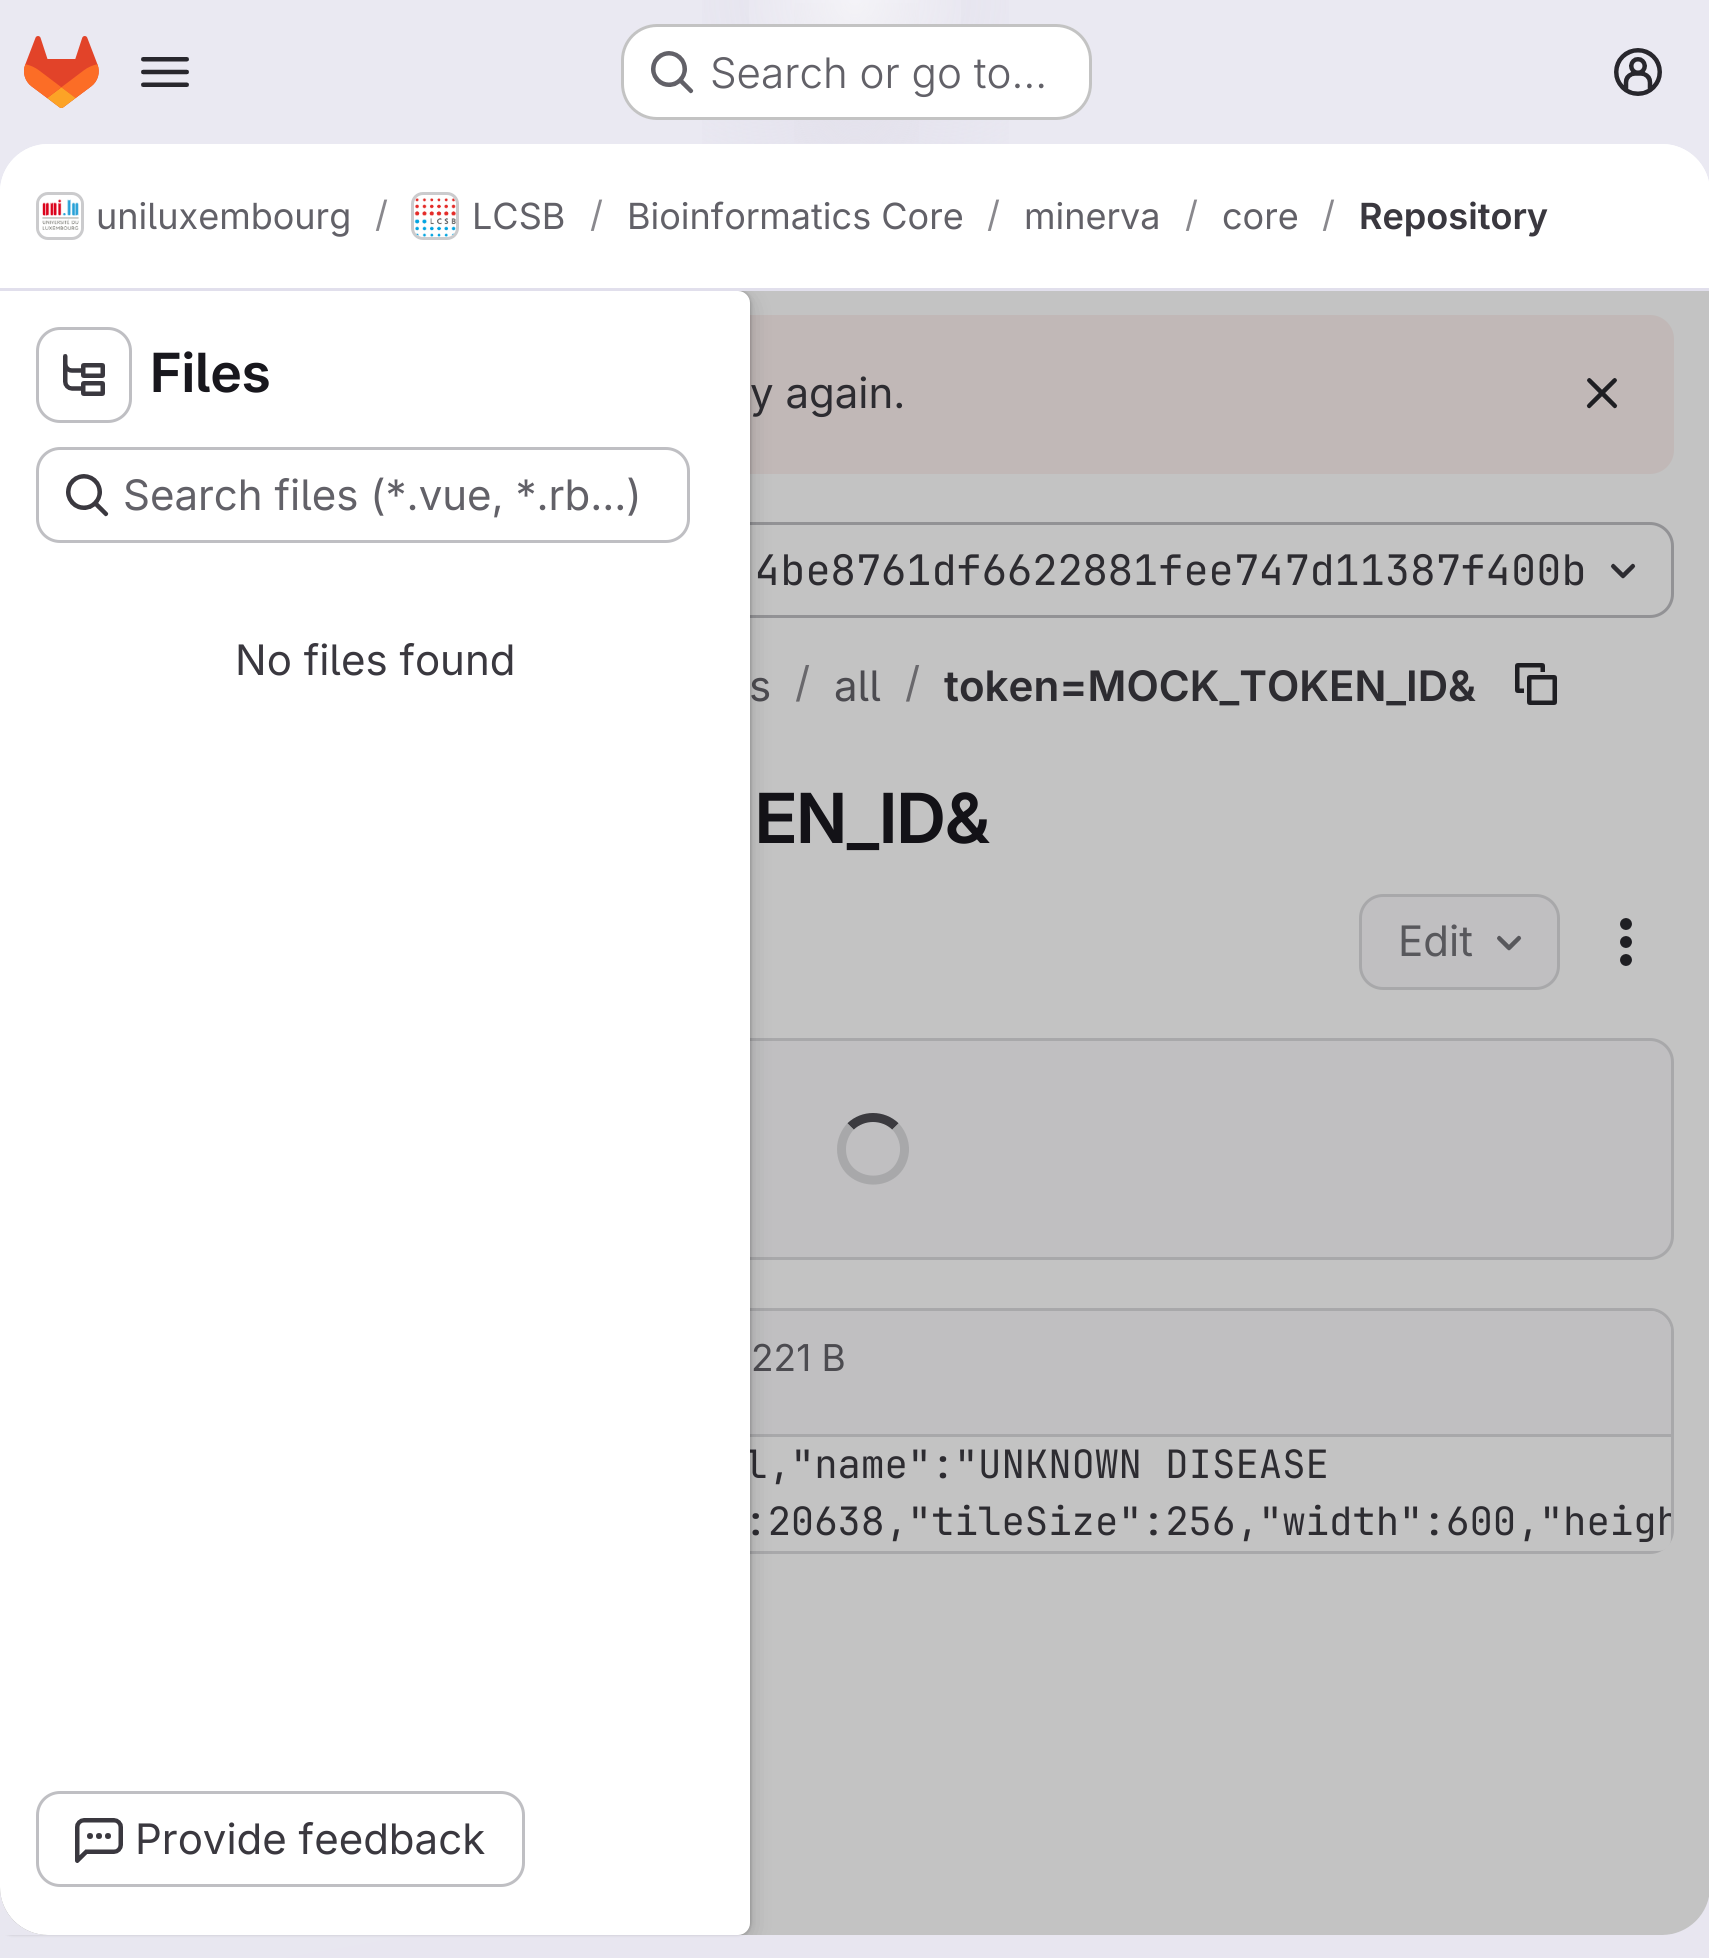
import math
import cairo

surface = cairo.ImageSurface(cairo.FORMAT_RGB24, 1709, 1958)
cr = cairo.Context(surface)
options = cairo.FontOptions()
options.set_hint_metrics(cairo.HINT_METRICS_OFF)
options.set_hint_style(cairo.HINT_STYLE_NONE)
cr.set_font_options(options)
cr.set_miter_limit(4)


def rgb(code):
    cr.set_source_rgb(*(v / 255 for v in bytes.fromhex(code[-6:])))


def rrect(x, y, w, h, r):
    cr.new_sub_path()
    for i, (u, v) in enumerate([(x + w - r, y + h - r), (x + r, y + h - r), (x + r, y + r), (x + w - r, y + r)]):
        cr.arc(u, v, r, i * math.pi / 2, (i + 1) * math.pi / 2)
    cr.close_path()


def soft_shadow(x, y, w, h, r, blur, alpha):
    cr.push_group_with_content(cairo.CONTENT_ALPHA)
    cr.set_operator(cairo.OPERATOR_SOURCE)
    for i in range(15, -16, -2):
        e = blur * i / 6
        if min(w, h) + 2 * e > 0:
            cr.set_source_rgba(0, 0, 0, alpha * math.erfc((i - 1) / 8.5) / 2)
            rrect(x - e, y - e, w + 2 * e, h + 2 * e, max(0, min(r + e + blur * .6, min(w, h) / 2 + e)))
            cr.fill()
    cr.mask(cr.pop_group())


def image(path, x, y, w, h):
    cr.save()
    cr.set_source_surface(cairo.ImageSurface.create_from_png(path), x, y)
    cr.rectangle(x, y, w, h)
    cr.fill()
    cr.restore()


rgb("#ffffff")
cr.paint()
gradient = cairo.LinearGradient(1048, 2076, 662, -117)
gradient.add_color_stop_rgba(0, 0.91, 0.902, 0.941, 1)
gradient.add_color_stop_rgba(0.7, 0.918, 0.914, 0.949, 1)
cr.set_source(gradient)
cr.rectangle(0, 0, 1709, 1958)
cr.fill()
gradient = cairo.RadialGradient(0, 0, 0, 0, 0, 1)
gradient.set_matrix(cairo.Matrix(1 / 855, 0, 0, 1 / 1959, -1 * 855 / 855, -1 * 0 / 1959))
gradient.add_color_stop_rgba(0, 0.894, 0.886, 0.929, 1)
gradient.add_color_stop_rgba(0.25, 0.894, 0.886, 0.929, 0)
cr.set_source(gradient)
cr.rectangle(702, 0, 307, 144)
cr.fill()
gradient = cairo.RadialGradient(0, 0, 0, 0, 0, 1)
gradient.set_matrix(cairo.Matrix(1 / 855, 0, 0, 1 / 1959, -1 * 855 / 855, -1 * 0 / 1959))
gradient.add_color_stop_rgba(0, 0.894, 0.886, 0.925, 1)
gradient.add_color_stop_rgba(0.18, 0.894, 0.886, 0.925, 0)
cr.set_source(gradient)
cr.rectangle(794, 3, 125, 140)
cr.fill()
gradient = cairo.RadialGradient(855, 0, 0, 855, 0, 2137)
gradient.add_color_stop_rgba(0, 1, 1, 1, 0.6)
gradient.add_color_stop_rgba(0.06, 1, 1, 1, 0)
cr.set_source(gradient)
cr.rectangle(749, 0, 212, 109)
cr.fill()
image("img/1.png", 24, 36, 75, 72)
image("img/2.png", 141, 57, 48, 30)
rgb("#ffffff")
rrect(621, 24, 471, 96, 36)
cr.fill()
rrect(622.5, 25.5, 468, 93, 34.5)
cr.set_source_rgba(0.02, 0.02, 0.024, 0.24)
cr.set_line_width(3)
cr.stroke()
image("img/3.png", 651, 51, 43, 43)
image("img/4.png", 1614, 48, 48, 48)
rgb("#ffffff")
rrect(0, 144, 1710, 1791, 48)
cr.fill()
rrect(541.5, 523.5, 1131, 93, 22.5)
rgb("#bfbfc3")
cr.stroke()
image("img/10.png", 1610, 563, 26, 16)
image("img/11.png", 1515, 663, 42, 42)
rgb("#fbfafd")
rrect(1360.5, 895.5, 198, 93, 22.5)
cr.fill_preserve()
rgb("#dcdcde")
cr.stroke()
image("img/12.png", 1497, 935, 25, 16)
image("img/13.png", 1620, 918, 12, 48)
rgb("#fbfafd")
rrect(73.5, 1039.5, 1599, 219, 22.5)
cr.fill_preserve()
rgb("#dcdcde")
cr.stroke()
cr.new_path()
cr.move_to(850.5, 1126.5)
cr.curve_to(863, 1114.5, 883, 1114.5, 895.5, 1126.5)
rgb("#4c4b51")
cr.set_line_width(9)
cr.stroke()
cr.new_path()
cr.move_to(895.5, 1126.5)
cr.curve_to(902.5, 1134, 906, 1145, 904, 1155)
cr.curve_to(896.5, 1192, 841.5, 1186.5, 841.5, 1149)
cr.curve_to(841.5, 1140.5, 845, 1132.5, 850.5, 1126.5)
rgb("#dcdcde")
cr.stroke()
rrect(73.5, 1309.5, 1599, 243, 22.5)
cr.set_line_width(3)
cr.stroke()
rgb("#fbfafd")
cr.new_path()
cr.move_to(96, 1311)
cr.line_to(1650, 1311)
cr.curve_to(1661.5, 1311, 1671, 1320.5, 1671, 1332)
cr.line_to(1671, 1437)
cr.line_to(75, 1437)
cr.line_to(75, 1332)
cr.curve_to(75, 1320.5, 84.5, 1311, 96, 1311)
cr.close_path()
cr.fill()
rgb("#dcdcde")
cr.rectangle(750, 1434, 921, 3)
cr.fill()
rgb("#ffffff")
cr.new_path()
cr.move_to(405, 1437)
cr.line_to(1671, 1437)
cr.line_to(1671, 1539)
cr.curve_to(1671, 1545.5, 1665.5, 1551, 1659, 1551)
cr.line_to(405, 1551)
cr.curve_to(398.5, 1551, 393, 1545.5, 393, 1539)
cr.line_to(393, 1449)
cr.curve_to(393, 1442.5, 398.5, 1437, 405, 1437)
cr.close_path()
cr.fill()
rgb("#fcf1ef")
rrect(36, 315, 1638, 159, 24)
cr.fill()
image("img/14.png", 1586, 378, 32, 31)
cr.select_font_face("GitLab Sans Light")
cr.set_font_size(42)
rgb("#626168")
cr.move_to(710, 88)
cr.show_text("Search or go to…")
cr.select_font_face("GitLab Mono")
rgb("#3a383f")
cr.move_to(755, 585)
cr.show_text("4be8761df6622881fee747d11387f400b")
cr.select_font_face("GitLab Sans")
rgb("#626168")
cr.move_to(749, 701)
cr.show_text("s")
rgb("#89888d")
cr.move_to(795, 697)
cr.show_text("/")
rgb("#626168")
cr.move_to(834, 701)
cr.show_text("all")
rgb("#89888d")
cr.move_to(905, 697)
cr.show_text("/")
cr.select_font_face("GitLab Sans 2 SemiBold")
rgb("#3a383f")
cr.move_to(944, 701)
cr.show_text("token=MOCK_TOKEN_ID&")
cr.select_font_face("GitLab Sans SemiBold")
cr.set_font_size(69)
rgb("#18171d")
cr.move_to(755, 843)
cr.show_text("EN_ID&")
cr.select_font_face("GitLab Sans")
cr.set_font_size(42)
rgb("#737278")
cr.move_to(1398, 956)
cr.show_text("Edit")
cr.set_font_size(37)
rgb("#626168")
cr.move_to(751, 1371)
cr.show_text("221 B")
cr.select_font_face("GitLab Mono")
cr.set_font_size(39)
rgb("#3a383f")
cr.move_to(744, 1478)
cr.show_text("l,\"name\":\"UNKNOWN DISEASE")
cr.save()
cr.new_path()
cr.move_to(75, 1437)
cr.line_to(1671, 1437)
cr.line_to(1671, 1539)
cr.curve_to(1671, 1545.5, 1665.5, 1551, 1659, 1551)
cr.line_to(87, 1551)
cr.curve_to(80.5, 1551, 75, 1545.5, 75, 1539)
cr.close_path()
cr.clip()
cr.move_to(744, 1535)
cr.show_text(":20638,\"tileSize\":256,\"width\":600,\"heigh")
cr.restore()
cr.select_font_face("GitLab Sans")
cr.set_font_size(42)
cr.move_to(750, 408)
cr.show_text("y again.")
cr.set_source_rgba(0.02, 0.02, 0.024, 0.24)
cr.new_path()
cr.move_to(0, 291)
cr.line_to(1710, 291)
cr.line_to(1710, 1887)
cr.curve_to(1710, 1913.5, 1688.5, 1935, 1662, 1935)
cr.line_to(48, 1935)
cr.curve_to(21.5, 1935, 0, 1913.5, 0, 1887)
cr.close_path()
cr.fill()
cr.save()
cr.set_fill_rule(cairo.FILL_RULE_EVEN_ODD)
cr.new_path()
cr.move_to(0, 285)
cr.line_to(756, 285)
cr.line_to(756, 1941)
cr.line_to(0, 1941)
cr.close_path()
cr.move_to(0, 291)
cr.line_to(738, 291)
cr.curve_to(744.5, 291, 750, 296.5, 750, 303)
cr.line_to(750, 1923)
cr.curve_to(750, 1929.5, 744.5, 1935, 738, 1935)
cr.line_to(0, 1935)
cr.close_path()
cr.clip()
rgb("#050506")
soft_shadow(0, 291, 750, 1644, 12, 1.5, 0.16)
cr.restore()
cr.save()
rrect(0, 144, 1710, 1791, 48)
cr.clip()
rgb("#050506")
soft_shadow(0, 291, 750, 1644, 12, 3, 0.16)
soft_shadow(0, 297, 750, 1644, 12, 12, 0.16)
cr.restore()
rgb("#ffffff")
cr.new_path()
cr.move_to(48, 144)
cr.line_to(1662, 144)
cr.curve_to(1688.5, 144, 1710, 165.5, 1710, 192)
cr.line_to(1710, 291)
cr.line_to(0, 291)
cr.line_to(0, 192)
cr.curve_to(0, 165.5, 21.5, 144, 48, 144)
cr.close_path()
cr.fill()
cr.select_font_face("GitLab Sans 2 SemiBold")
cr.set_font_size(36)
rgb("#3a383f")
cr.move_to(1359, 229)
cr.show_text("Repository")
cr.select_font_face("GitLab Sans")
rgb("#89888d")
cr.move_to(1322, 227)
cr.show_text("/")
rgb("#626168")
cr.move_to(1222, 229)
cr.show_text("core")
rgb("#89888d")
cr.move_to(1185, 227)
cr.show_text("/")
rgb("#626168")
cr.move_to(1024, 229)
cr.show_text("minerva")
rgb("#89888d")
cr.move_to(987, 227)
cr.show_text("/")
rgb("#626168")
cr.move_to(627, 229)
cr.show_text("Bioinformatics Core")
rgb("#89888d")
cr.move_to(590, 227)
cr.show_text("/")
rgb("#626168")
cr.move_to(472, 229)
cr.show_text("LCSB")
rrect(412.5, 193.5, 45, 45, 10.5)
rgb("#dcdcde")
cr.stroke()
image("img/6.png", 414, 198, 42, 39)
rrect(412.5, 193.5, 45, 45, 10.5)
cr.set_source_rgba(0.02, 0.02, 0.024, 0.08)
cr.stroke()
rgb("#89888d")
cr.move_to(375, 227)
cr.show_text("/")
rgb("#626168")
cr.move_to(96, 229)
cr.show_text("uniluxembourg")
rrect(37.5, 193.5, 45, 45, 10.5)
rgb("#dcdcde")
cr.stroke()
image("img/5.png", 39, 199, 42, 34)
rrect(37.5, 193.5, 45, 45, 10.5)
cr.set_source_rgba(0.02, 0.02, 0.024, 0.08)
cr.stroke()
rgb("#e1dfec")
cr.rectangle(0, 288, 1709, 3)
cr.fill()
rgb("#ffffff")
cr.new_path()
cr.move_to(0, 291)
cr.line_to(738, 291)
cr.curve_to(744.5, 291, 750, 296.5, 750, 303)
cr.line_to(750, 1923)
cr.curve_to(750, 1929.5, 744.5, 1935, 738, 1935)
cr.line_to(48, 1935)
cr.curve_to(21.5, 1935, 0, 1913.5, 0, 1887)
cr.close_path()
cr.fill()
rrect(37.5, 448.5, 651, 93, 22.5)
rgb("#bfbfc3")
cr.stroke()
cr.set_font_size(42)
rgb("#626168")
cr.move_to(123, 510)
cr.show_text("Search files (*.vue, *.rb...)")
image("img/8.png", 66, 474, 43, 43)
rrect(37.5, 1792.5, 486, 93, 22.5)
rgb("#bfbfc3")
cr.stroke()
rgb("#3a383f")
cr.move_to(135, 1854)
cr.show_text("Provide feedback")
image("img/9.png", 75, 1818, 48, 45)
rrect(37.5, 328.5, 93, 93, 22.5)
rgb("#bfbfc3")
cr.stroke()
image("img/7.png", 63, 354, 42, 42)
rgb("#3a383f")
cr.move_to(235, 675)
cr.show_text("No files found")
cr.select_font_face("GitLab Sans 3 SemiBold")
cr.set_font_size(54)
rgb("#18171d")
cr.move_to(150, 392)
cr.show_text("Files")
surface.write_to_png("page.png")
